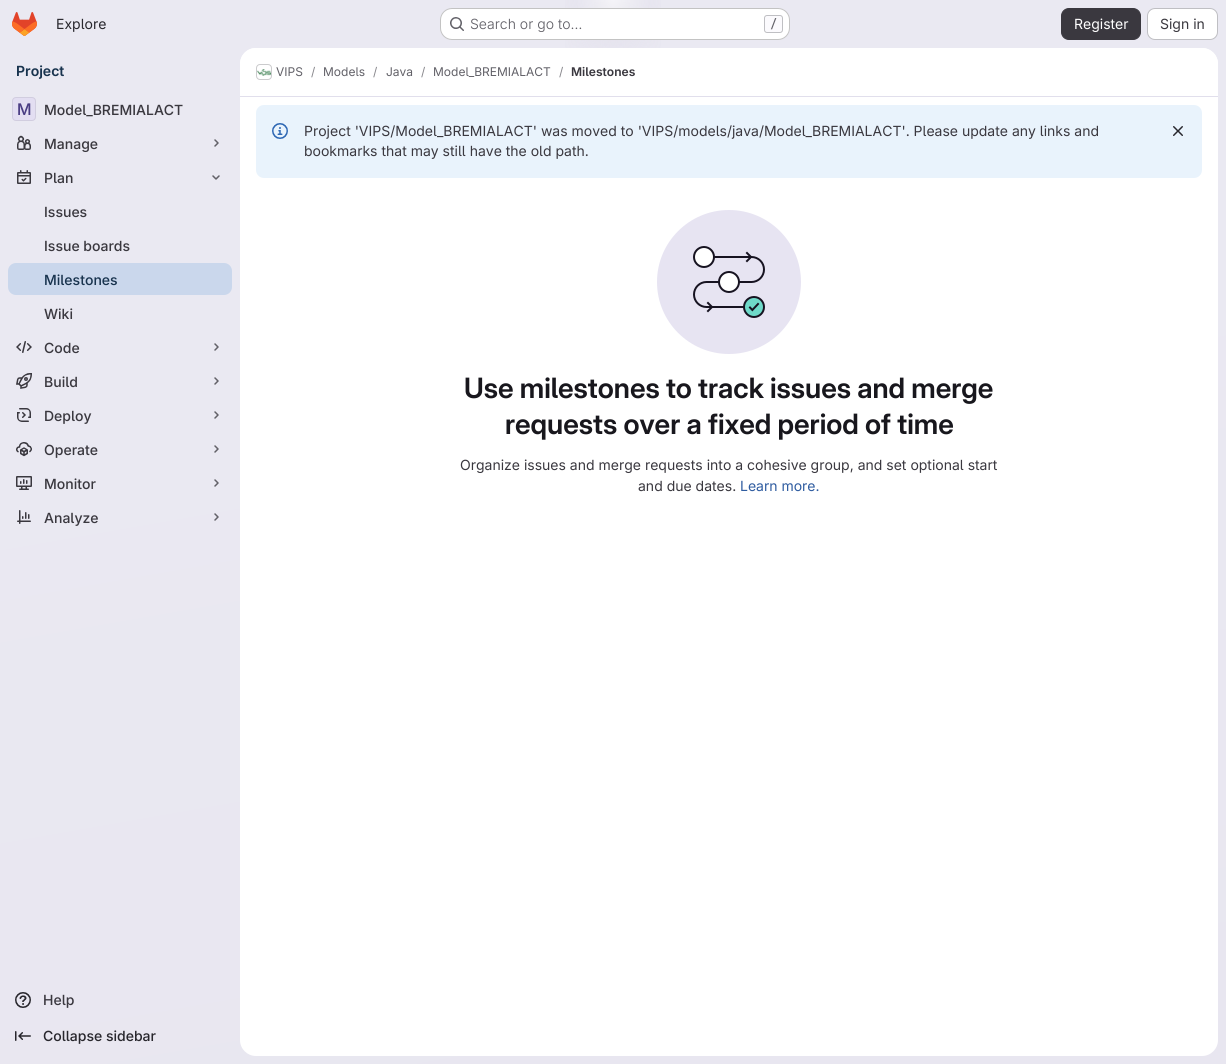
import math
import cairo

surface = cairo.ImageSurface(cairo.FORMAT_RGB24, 1226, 1064)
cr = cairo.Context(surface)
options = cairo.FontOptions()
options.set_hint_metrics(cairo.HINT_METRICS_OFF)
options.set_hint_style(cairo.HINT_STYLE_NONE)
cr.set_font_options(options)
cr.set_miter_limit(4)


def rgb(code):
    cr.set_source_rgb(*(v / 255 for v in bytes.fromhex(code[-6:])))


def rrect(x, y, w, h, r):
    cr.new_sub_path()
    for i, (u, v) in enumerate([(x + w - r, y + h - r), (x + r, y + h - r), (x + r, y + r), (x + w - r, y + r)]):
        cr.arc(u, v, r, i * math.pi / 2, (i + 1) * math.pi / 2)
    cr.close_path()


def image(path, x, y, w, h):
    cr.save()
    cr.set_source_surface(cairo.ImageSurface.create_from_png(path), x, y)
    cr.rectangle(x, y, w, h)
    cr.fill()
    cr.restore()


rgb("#ffffff")
cr.paint()
gradient = cairo.LinearGradient(722, 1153, 504, -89)
gradient.add_color_stop_rgba(0, 0.91, 0.902, 0.941, 1)
gradient.add_color_stop_rgba(0.7, 0.918, 0.914, 0.949, 1)
cr.set_source(gradient)
cr.rectangle(0, 0, 1226, 1064)
cr.fill()
gradient = cairo.RadialGradient(0, 0, 0, 0, 0, 1)
gradient.set_matrix(cairo.Matrix(1 / 613, 0, 0, 1 / 1064, -1 * 613 / 613, -1 * 0 / 1064))
gradient.add_color_stop_rgba(0, 0.894, 0.886, 0.929, 1)
gradient.add_color_stop_rgba(0.11, 0.894, 0.886, 0.929, 0)
cr.set_source(gradient)
cr.rectangle(565, 0, 96, 48)
cr.fill()
gradient = cairo.RadialGradient(0, 0, 0, 0, 0, 1)
gradient.set_matrix(cairo.Matrix(1 / 613, 0, 0, 1 / 1064, -1 * 613 / 613, -1 * 0 / 1064))
gradient.add_color_stop_rgba(0, 0.894, 0.886, 0.925, 1)
gradient.add_color_stop_rgba(0.08, 0.894, 0.886, 0.925, 0)
cr.set_source(gradient)
cr.rectangle(594, 2, 36, 19)
cr.fill()
gradient = cairo.RadialGradient(613, 0, 0, 613, 0, 1228)
gradient.add_color_stop_rgba(0, 1, 1, 1, 0.6)
gradient.add_color_stop_rgba(0.03, 1, 1, 1, 0)
cr.set_source(gradient)
cr.rectangle(577, 0, 72, 8)
cr.fill()
image("img/1.png", 12, 12, 25, 24)
rgb("#ffffff")
rrect(440, 8, 350, 32, 12)
cr.fill()
rrect(440.5, 8.5, 349, 31, 11.5)
cr.set_source_rgba(0.02, 0.02, 0.024, 0.24)
cr.set_line_width(1)
cr.stroke()
image("img/2.png", 450, 17, 14, 14)
rgb("#fbfafd")
rrect(764.5, 15.5, 18, 17, 2.5)
cr.fill_preserve()
rgb("#bfbfc3")
cr.stroke()
rgb("#3a383f")
rrect(1061.5, 8.5, 79, 31, 7.5)
cr.fill_preserve()
cr.stroke()
rgb("#ffffff")
rrect(1147.5, 8.5, 70, 31, 7.5)
cr.fill_preserve()
rgb("#bfbfc3")
cr.stroke()
rgb("#e3def2")
rrect(12, 97, 24, 24, 4)
cr.fill()
rrect(12.5, 97.5, 23, 23, 3.5)
cr.set_source_rgba(0.02, 0.02, 0.024, 0.08)
cr.stroke()
image("img/3.png", 17, 135, 14, 15)
cr.new_path()
cr.move_to(215, 140)
cr.line_to(218, 143)
cr.line_to(215, 146)
rgb("#626168")
cr.set_line_width(1.5)
cr.set_line_cap(cairo.LINE_CAP_ROUND)
cr.set_line_join(cairo.LINE_JOIN_ROUND)
cr.stroke()
image("img/4.png", 17, 170, 14, 14)
cr.new_path()
cr.move_to(219, 176)
cr.line_to(216, 179)
cr.line_to(213, 176)
cr.stroke()
rgb("#cad7ec")
rrect(8, 263, 224, 32, 8)
cr.fill()
image("img/5.png", 16, 341, 16, 12)
cr.new_path()
cr.move_to(215, 344)
cr.line_to(218, 347)
cr.line_to(215, 350)
rgb("#626168")
cr.stroke()
image("img/6.png", 16, 373, 16, 16)
cr.new_path()
cr.move_to(215, 378)
cr.line_to(218, 381)
cr.line_to(215, 384)
cr.stroke()
image("img/7.png", 17, 408, 14, 14)
cr.new_path()
cr.move_to(215, 412)
cr.line_to(218, 415)
cr.line_to(215, 418)
cr.stroke()
image("img/8.png", 16, 442, 16, 15)
cr.new_path()
cr.move_to(215, 446)
cr.line_to(218, 449)
cr.line_to(215, 452)
cr.stroke()
image("img/9.png", 16, 476, 16, 14)
cr.new_path()
cr.move_to(215, 480)
cr.line_to(218, 483)
cr.line_to(215, 486)
cr.stroke()
image("img/10.png", 17, 510, 14, 14)
cr.new_path()
cr.move_to(215, 514)
cr.line_to(218, 517)
cr.line_to(215, 520)
cr.stroke()
image("img/11.png", 15, 992, 16, 16)
image("img/12.png", 15, 1031, 16, 10)
rgb("#ffffff")
rrect(240, 48, 978, 1008, 16)
cr.fill()
cr.new_path()
cr.move_to(256, 48)
cr.line_to(1202, 48)
cr.curve_to(1211, 48, 1218, 55, 1218, 64)
cr.line_to(1218, 97)
cr.line_to(240, 97)
cr.line_to(240, 64)
cr.curve_to(240, 55, 247, 48, 256, 48)
cr.close_path()
cr.fill()
rgb("#e1dfec")
cr.rectangle(240, 96, 978, 1)
cr.fill()
rrect(256.5, 64.5, 15, 15, 3.5)
rgb("#dcdcde")
cr.set_line_width(1)
cr.set_line_cap(cairo.LINE_CAP_BUTT)
cr.set_line_join(cairo.LINE_JOIN_MITER)
cr.stroke()
image("img/13.png", 257, 69, 14, 7)
rrect(256.5, 64.5, 15, 15, 3.5)
cr.set_source_rgba(0.02, 0.02, 0.024, 0.08)
cr.stroke()
rgb("#e9f3fc")
rrect(256, 105, 946, 73, 8)
cr.fill()
image("img/14.png", 272, 123, 16, 16)
image("img/15.png", 1173, 126, 10, 10)
image("img/16.png", 657, 210, 144, 144)
cr.select_font_face("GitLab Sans")
cr.set_font_size(14)
rgb("#28272d")
cr.move_to(56, 29)
cr.show_text("Explore")
cr.select_font_face("GitLab Sans Light")
rgb("#626168")
cr.move_to(470, 29)
cr.show_text("Search or go to…")
cr.select_font_face("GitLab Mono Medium")
cr.set_font_size(12)
cr.move_to(770, 28)
cr.show_text("/")
cr.select_font_face("GitLab Sans")
cr.set_font_size(14)
rgb("#ffffff")
cr.move_to(1074, 29)
cr.show_text("Register")
rgb("#3a383f")
cr.move_to(1160, 29)
cr.show_text("Sign in")
cr.select_font_face("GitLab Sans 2 SemiBold")
rgb("#18334e")
cr.move_to(16, 76)
cr.show_text("Project")
cr.select_font_face("GitLab Sans 2 Medium")
cr.set_font_size(16)
rgb("#493c83")
cr.move_to(17, 115)
cr.show_text("M")
cr.select_font_face("GitLab Sans Medium")
cr.set_font_size(14)
rgb("#3a383f")
for x, y, s in [
    (44, 115, "Model_BREMIALACT"),
    (44, 149, "Manage"),
    (44, 183, "Plan"),
    (44, 217, "Issues"),
    (44, 251, "Issue boards"),
]:
    cr.move_to(x, y)
    cr.show_text(s)
rgb("#18334e")
cr.move_to(44, 285)
cr.show_text("Milestones")
rgb("#3a383f")
for x, y, s in [
    (44, 319, "Wiki"),
    (44, 353, "Code"),
    (44, 387, "Build"),
    (44, 421, "Deploy"),
    (44, 455, "Operate"),
    (44, 489, "Monitor"),
    (44, 523, "Analyze"),
    (43, 1005, "Help"),
]:
    cr.move_to(x, y)
    cr.show_text(s)
rgb("#28272d")
cr.move_to(43, 1041)
cr.show_text("Collapse sidebar")
cr.select_font_face("GitLab Sans")
cr.set_font_size(12)
rgb("#626168")
cr.move_to(276, 76)
cr.show_text("VIPS")
rgb("#89888d")
cr.move_to(311, 76)
cr.show_text("/")
rgb("#626168")
cr.move_to(323, 76)
cr.show_text("Models")
rgb("#89888d")
cr.move_to(373, 76)
cr.show_text("/")
rgb("#626168")
cr.move_to(386, 76)
cr.show_text("Java")
rgb("#89888d")
cr.move_to(421, 76)
cr.show_text("/")
rgb("#626168")
cr.move_to(433, 76)
cr.show_text("Model_BREMIALACT")
rgb("#89888d")
cr.move_to(559, 76)
cr.show_text("/")
cr.select_font_face("GitLab Sans 2 SemiBold")
rgb("#3a383f")
cr.move_to(571, 76)
cr.show_text("Milestones")
cr.select_font_face("GitLab Sans")
cr.set_font_size(14)
cr.move_to(304, 136)
cr.show_text("Project 'VIPS/Model_BREMIALACT' was moved to 'VIPS/models/java/Model_BREMIALACT'. Please update any links and")
cr.move_to(304, 156)
cr.show_text("bookmarks that may still have the old path.")
cr.select_font_face("GitLab Sans SemiBold")
cr.set_font_size(28)
rgb("#18171d")
cr.move_to(464, 398)
cr.show_text("Use milestones to track issues and merge")
cr.move_to(505, 434)
cr.show_text("requests over a fixed period of time")
cr.select_font_face("GitLab Sans")
cr.set_font_size(14)
rgb("#3a383f")
cr.move_to(460, 470)
cr.show_text("Organize issues and merge requests into a cohesive group, and set optional start")
cr.move_to(638, 491)
cr.show_text("and due dates.")
rgb("#2f5ca0")
cr.move_to(740, 491)
cr.show_text("Learn more.")
surface.write_to_png("page.png")
